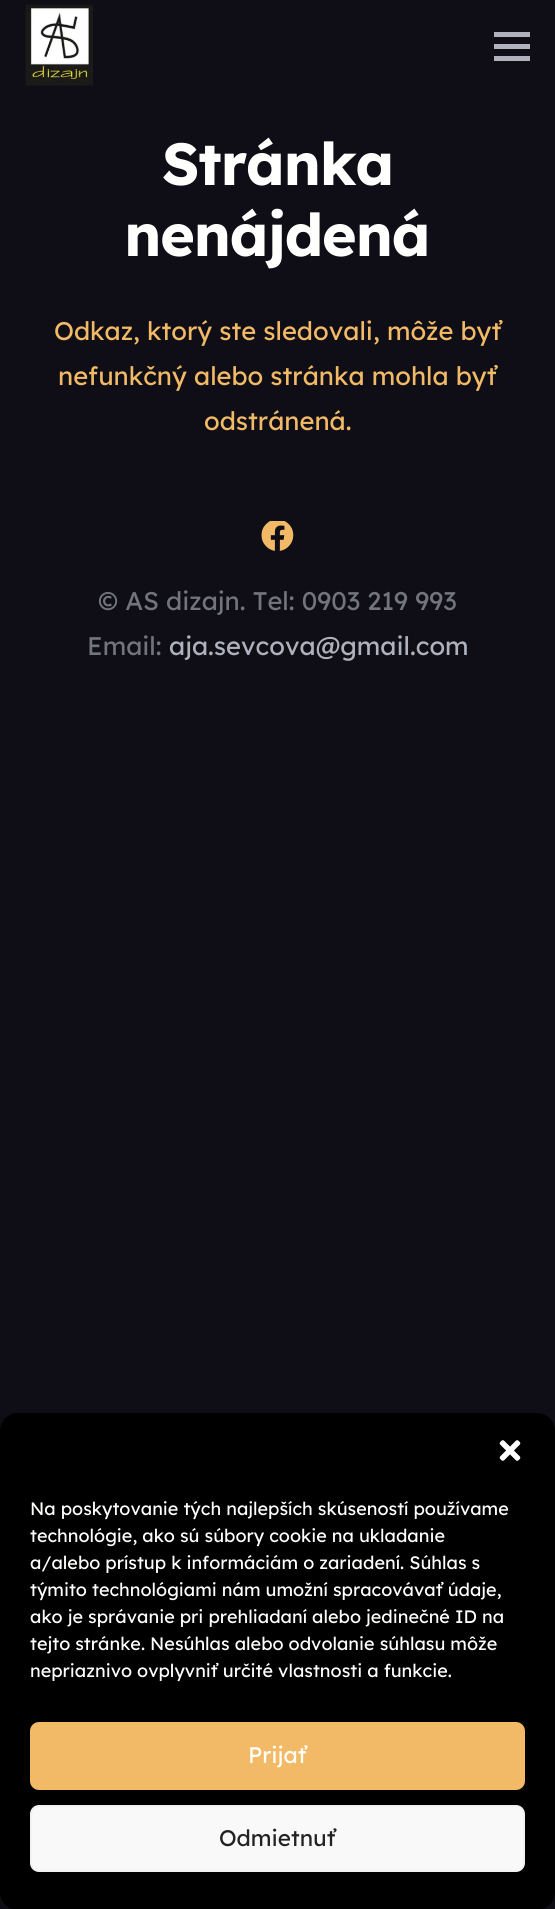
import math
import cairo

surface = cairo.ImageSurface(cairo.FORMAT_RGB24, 555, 1909)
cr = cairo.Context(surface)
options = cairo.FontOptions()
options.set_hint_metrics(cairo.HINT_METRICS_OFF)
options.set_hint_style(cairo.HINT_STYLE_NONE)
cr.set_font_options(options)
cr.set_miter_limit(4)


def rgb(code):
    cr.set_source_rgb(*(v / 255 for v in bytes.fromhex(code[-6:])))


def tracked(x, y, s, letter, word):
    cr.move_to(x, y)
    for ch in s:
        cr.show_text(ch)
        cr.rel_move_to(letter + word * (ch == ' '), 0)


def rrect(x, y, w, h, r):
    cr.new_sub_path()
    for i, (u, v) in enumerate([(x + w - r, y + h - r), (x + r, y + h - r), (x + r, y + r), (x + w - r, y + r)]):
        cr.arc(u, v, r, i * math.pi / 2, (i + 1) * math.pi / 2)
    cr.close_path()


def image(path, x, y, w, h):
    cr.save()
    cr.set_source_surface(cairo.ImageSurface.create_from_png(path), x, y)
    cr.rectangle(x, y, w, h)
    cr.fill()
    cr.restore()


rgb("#0f0e17")
cr.paint()
image("img/1.png", 25, 4, 68, 82)
for x, y, w, h, color in [
    (494, 44, 36, 5, "#afb1bd"),
    (494, 32, 36, 5, "#afb1bd"),
    (494, 56, 36, 5, "#afb1bd"),
]:
    rgb(color)
    cr.rectangle(x, y, w, h)
    cr.fill()
image("img/2.png", 261, 521, 33, 30)
rgb("#000000")
rrect(0, 1413, 555, 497, 18)
cr.fill()
image("img/3.png", 499, 1440, 22, 21)
rgb("#f2ba66")
rrect(31, 1723, 493, 66, 8)
cr.fill_preserve()
cr.stroke()
rgb("#f9f9f9")
rrect(31, 1806, 493, 65, 8)
cr.fill_preserve()
rgb("#f2f2f2")
cr.stroke()
cr.select_font_face("Lexend", cairo.FONT_SLANT_NORMAL, cairo.FONT_WEIGHT_BOLD)
cr.set_font_size(59)
rgb("#fffffe")
tracked(162, 185, "Stránka", -1.25, 0)
tracked(124, 256, "nenájdená", -1.25, 0)
cr.select_font_face("Lexend")
cr.set_font_size(25.5)
rgb("#f2ba66")
for x, y, s in [
    (54, 340, "Odkaz, ktorý ste sledovali, môže byť"),
    (58, 385, "nefunkčný alebo stránka mohla byť"),
    (204, 430, "odstránená."),
]:
    cr.move_to(x, y)
    cr.show_text(s)
rgb("#72757e")
cr.move_to(98, 610)
cr.show_text("© AS dizajn. Tel: 0903 219 993")
cr.move_to(87, 655)
cr.show_text("Email:")
rgb("#afb1bd")
cr.move_to(169, 655)
cr.show_text("aja.sevcova@gmail.com")
cr.set_font_size(18)
rgb("#fffffe")
for x, y, s in [
    (30, 1515, "Na poskytovanie tých najlepších skúseností používame"),
    (30, 1542, "technológie, ako sú súbory cookie na ukladanie"),
    (30, 1569, "a/alebo prístup k informáciám o zariadení. Súhlas s"),
    (30, 1596, "týmito technológiami nám umožní spracovávať údaje,"),
    (30, 1623, "ako je správanie pri prehliadaní alebo jedinečné ID na"),
    (30, 1650, "tejto stránke. Nesúhlas alebo odvolanie súhlasu môže"),
    (30, 1677, "nepriaznivo ovplyvniť určité vlastnosti a funkcie."),
]:
    cr.move_to(x, y)
    cr.show_text(s)
cr.set_font_size(22.5)
cr.move_to(248, 1763)
cr.show_text("Prijať")
rgb("#222222")
cr.move_to(219, 1846)
cr.show_text("Odmietnuť")
surface.write_to_png("page.png")
